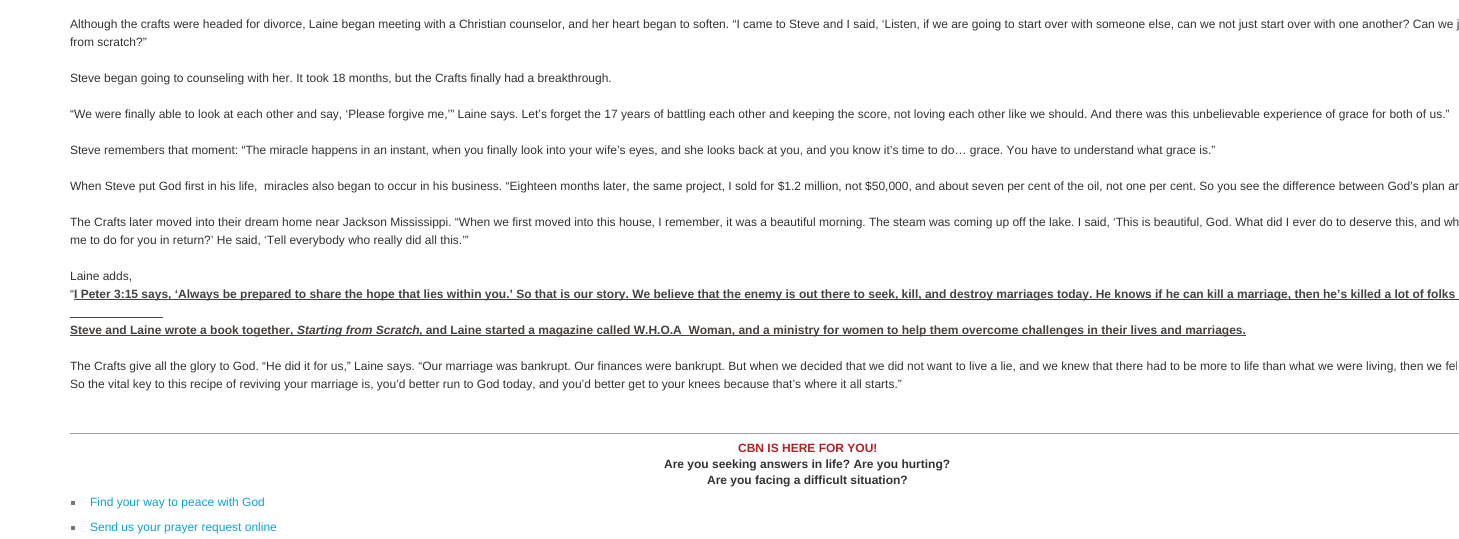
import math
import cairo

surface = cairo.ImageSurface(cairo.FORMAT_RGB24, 1459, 539)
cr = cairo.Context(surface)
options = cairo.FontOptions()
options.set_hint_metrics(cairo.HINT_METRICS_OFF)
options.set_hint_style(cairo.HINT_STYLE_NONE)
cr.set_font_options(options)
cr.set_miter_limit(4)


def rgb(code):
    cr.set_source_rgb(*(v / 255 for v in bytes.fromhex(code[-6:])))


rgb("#ffffff")
cr.paint()
for x, y, w, h, color in [
    (74, 299, 1385, 1, "#454240"),
    (70, 317, 93, 1, "#454240"),
    (70, 335, 1176, 1, "#454240"),
    (70, 433, 1389, 1, "#9f9f9f"),
    (71, 501, 4, 4, "#777777"),
    (71, 526, 4, 4, "#777777"),
]:
    rgb(color)
    cr.rectangle(x, y, w, h)
    cr.fill()
cr.select_font_face("Liberation Sans")
cr.set_font_size(12)
rgb("#333333")
for x, y, s in [
    (70, 28, "Although the crafts were headed for divorce, Laine began meeting with a Christian counselor, and her heart began to soften. “I came to Steve and I said, ‘Listen, if we are going to start over with someone else, can we not just start over with one another? Can we j"),
    (70, 46, "from scratch?”"),
    (70, 82, "Steve began going to counseling with her. It took 18 months, but the Crafts finally had a breakthrough."),
    (70, 118, "“We were finally able to look at each other and say, ‘Please forgive me,’” Laine says. Let’s forget the 17 years of battling each other and keeping the score, not loving each other like we should. And there was this unbelievable experience of grace for both of us.”"),
    (70, 154, "Steve remembers that moment: “The miracle happens in an instant, when you finally look into your wife’s eyes, and she looks back at you, and you know it’s time to do… grace. You have to understand what grace is.”"),
    (70, 190, "When Steve put God first in his life,  miracles also began to occur in his business. “Eighteen months later, the same project, I sold for $1.2 million, not $50,000, and about seven per cent of the oil, not one per cent. So you see the difference between God’s plan an"),
    (70, 226, "The Crafts later moved into their dream home near Jackson Mississippi. “When we first moved into this house, I remember, it was a beautiful morning. The steam was coming up off the lake. I said, ‘This is beautiful, God. What did I ever do to deserve this, and wh"),
    (70, 244, "me to do for you in return?’ He said, ‘Tell everybody who really did all this.’”"),
    (70, 280, "Laine adds,"),
    (70, 298, "“"),
]:
    cr.move_to(x, y)
    cr.show_text(s)
cr.select_font_face("Liberation Sans", cairo.FONT_SLANT_NORMAL, cairo.FONT_WEIGHT_BOLD)
rgb("#454240")
cr.move_to(74, 298)
cr.show_text("I Peter 3:15 says, ‘Always be prepared to share the hope that lies within you.’ So that is our story. We believe that the enemy is out there to seek, kill, and destroy marriages today. He knows if he can kill a marriage, then he’s killed a lot of folks")
cr.move_to(70, 334)
cr.show_text("Steve and Laine wrote a book together,")
cr.select_font_face("Liberation Sans", cairo.FONT_SLANT_ITALIC, cairo.FONT_WEIGHT_BOLD)
cr.move_to(297, 334)
cr.show_text("Starting from Scratch")
cr.select_font_face("Liberation Sans", cairo.FONT_SLANT_NORMAL, cairo.FONT_WEIGHT_BOLD)
cr.move_to(419, 334)
cr.show_text(", and Laine started a magazine called W.H.O.A  Woman, and a ministry for women to help them overcome challenges in their lives and marriages.")
cr.select_font_face("Liberation Sans")
rgb("#333333")
cr.move_to(70, 370)
cr.show_text("The Crafts give all the glory to God. “He did it for us,” Laine says. “Our marriage was bankrupt. Our finances were bankrupt. But when we decided that we did not want to live a lie, and we knew that there had to be more to life than what we were living, then we fel")
cr.move_to(70, 388)
cr.show_text("So the vital key to this recipe of reviving your marriage is, you’d better run to God today, and you’d better get to your knees because that’s where it all starts.”")
cr.select_font_face("Liberation Sans", cairo.FONT_SLANT_NORMAL, cairo.FONT_WEIGHT_BOLD)
rgb("#b52025")
cr.move_to(738, 452)
cr.show_text("CBN IS HERE FOR YOU!")
rgb("#333333")
cr.move_to(664, 468)
cr.show_text("Are you seeking answers in life? Are you hurting?")
cr.move_to(707, 484)
cr.show_text("Are you facing a difficult situation?")
cr.select_font_face("Liberation Sans")
rgb("#0ca3d4")
cr.move_to(90, 506)
cr.show_text("Find your way to peace with God")
cr.move_to(90, 531)
cr.show_text("Send us your prayer request online")
surface.write_to_png("page.png")
